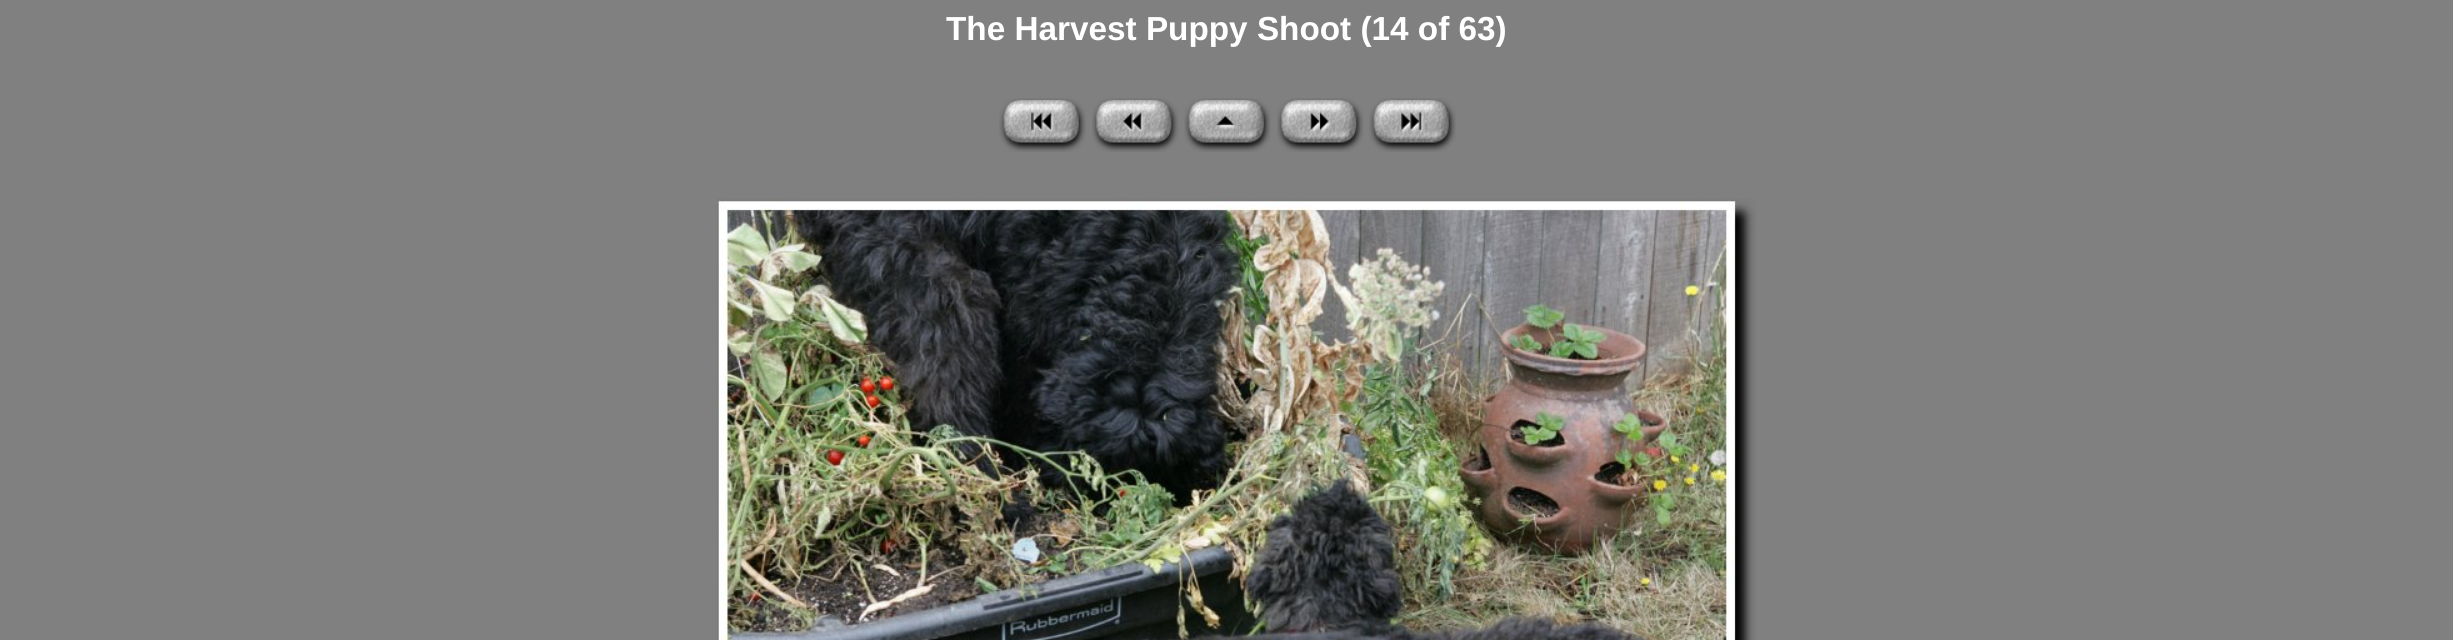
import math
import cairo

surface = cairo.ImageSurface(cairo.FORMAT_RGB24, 2453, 640)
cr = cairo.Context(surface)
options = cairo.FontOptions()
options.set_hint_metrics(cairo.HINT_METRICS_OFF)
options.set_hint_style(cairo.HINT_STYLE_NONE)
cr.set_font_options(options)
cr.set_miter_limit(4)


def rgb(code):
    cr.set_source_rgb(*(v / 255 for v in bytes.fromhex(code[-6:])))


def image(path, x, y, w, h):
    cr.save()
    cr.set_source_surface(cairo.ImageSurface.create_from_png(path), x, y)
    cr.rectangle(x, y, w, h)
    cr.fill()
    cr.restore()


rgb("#808080")
cr.paint()
image("img/1.png", 999, 98, 87, 54)
image("img/2.png", 1092, 98, 87, 54)
image("img/3.png", 1184, 98, 87, 54)
image("img/4.png", 1277, 98, 87, 54)
image("img/5.png", 1369, 98, 87, 54)
image("img/6.png", 716, 198, 1040, 442)
cr.select_font_face("Liberation Sans", cairo.FONT_SLANT_NORMAL, cairo.FONT_WEIGHT_BOLD)
cr.set_font_size(33.3)
rgb("#ffffff")
cr.move_to(946, 40)
cr.show_text("The Harvest Puppy Shoot (14 of 63)")
surface.write_to_png("page.png")
